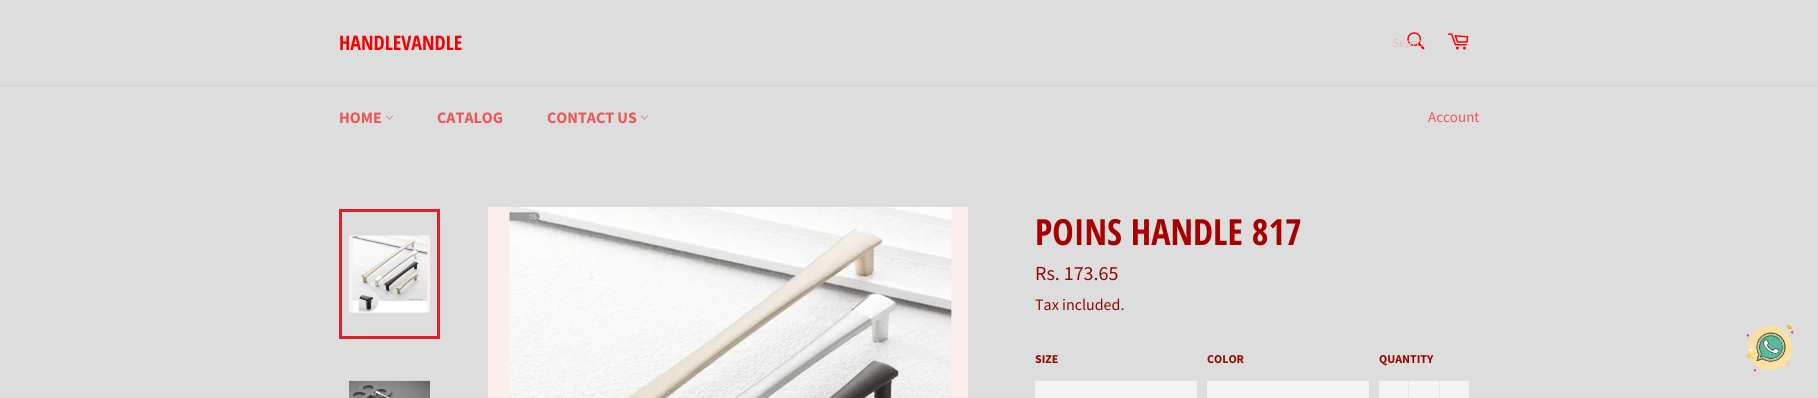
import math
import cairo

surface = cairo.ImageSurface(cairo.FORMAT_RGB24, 1818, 398)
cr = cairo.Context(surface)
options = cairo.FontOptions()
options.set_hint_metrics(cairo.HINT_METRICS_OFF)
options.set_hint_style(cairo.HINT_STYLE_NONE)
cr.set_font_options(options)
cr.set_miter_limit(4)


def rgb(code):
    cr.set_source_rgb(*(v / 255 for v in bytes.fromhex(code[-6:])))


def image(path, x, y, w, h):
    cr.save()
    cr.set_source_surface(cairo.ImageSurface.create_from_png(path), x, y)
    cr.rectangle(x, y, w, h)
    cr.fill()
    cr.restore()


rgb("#dddddd")
cr.paint()
image("img/1.png", 1407, 32, 18, 18)
image("img/2.png", 1447, 33, 22, 17)
rgb("#d0d0d0")
cr.rectangle(0, 85, 1818, 1)
cr.fill()
image("img/3.png", 386, 115, 7, 5)
image("img/3.png", 641, 115, 7, 5)
image("img/4.png", 349, 235, 81, 78)
cr.rectangle(340.5, 210.5, 98, 127)
rgb("#d8232f")
cr.set_line_width(3)
cr.stroke()
image("img/5.png", 349, 380, 81, 18)
image("img/6.png", 488, 207, 480, 191)
for x, y, w, h, color in [
    (1035, 381, 162, 17, "#f4f4f4"),
    (1207, 381, 162, 17, "#f4f4f4"),
    (1379, 381, 90, 17, "#f4f4f4"),
    (1408, 381, 1, 17, "#e7e7e7"),
    (1439, 381, 1, 17, "#e7e7e7"),
]:
    rgb(color)
    cr.rectangle(x, y, w, h)
    cr.fill()
image("img/7.png", 1746, 324, 48, 48)
cr.select_font_face("Open Sans Condensed", cairo.FONT_SLANT_NORMAL, cairo.FONT_WEIGHT_BOLD)
cr.set_font_size(20)
rgb("#f50000")
cr.move_to(339, 50)
cr.show_text("HANDLEVANDLE")
cr.save()
cr.rectangle(1392, 34, 32, 17)
cr.clip()
cr.select_font_face("Source Sans Pro")
cr.set_font_size(13)
rgb("#e0c0c0")
cr.move_to(1392, 47)
cr.show_text("Search")
cr.restore()
cr.select_font_face("Source Sans Pro", cairo.FONT_SLANT_NORMAL, cairo.FONT_WEIGHT_BOLD)
cr.set_font_size(16)
rgb("#eb5858")
for x, y, s in [
    (339, 123, "HOME"),
    (437, 123, "CATALOG"),
    (547, 123, "CONTACT US"),
]:
    cr.move_to(x, y)
    cr.show_text(s)
cr.select_font_face("Source Sans Pro")
cr.set_font_size(15)
cr.move_to(1428, 122)
cr.show_text("Account")
cr.select_font_face("Open Sans Condensed", cairo.FONT_SLANT_NORMAL, cairo.FONT_WEIGHT_BOLD)
cr.set_font_size(36)
rgb("#a60000")
cr.move_to(1035, 245)
cr.show_text("POINS HANDLE 817")
cr.select_font_face("Source Sans Pro")
cr.set_font_size(20)
rgb("#8e0b00")
cr.move_to(1035, 280)
cr.show_text("Rs. 173.65")
cr.set_font_size(16)
cr.move_to(1035, 310)
cr.show_text("Tax included.")
cr.select_font_face("Source Sans Pro", cairo.FONT_SLANT_NORMAL, cairo.FONT_WEIGHT_BOLD)
cr.set_font_size(12)
for x, y, s in [
    (1035, 363, "SIZE"),
    (1207, 363, "COLOR"),
    (1379, 363, "QUANTITY"),
]:
    cr.move_to(x, y)
    cr.show_text(s)
surface.write_to_png("page.png")
